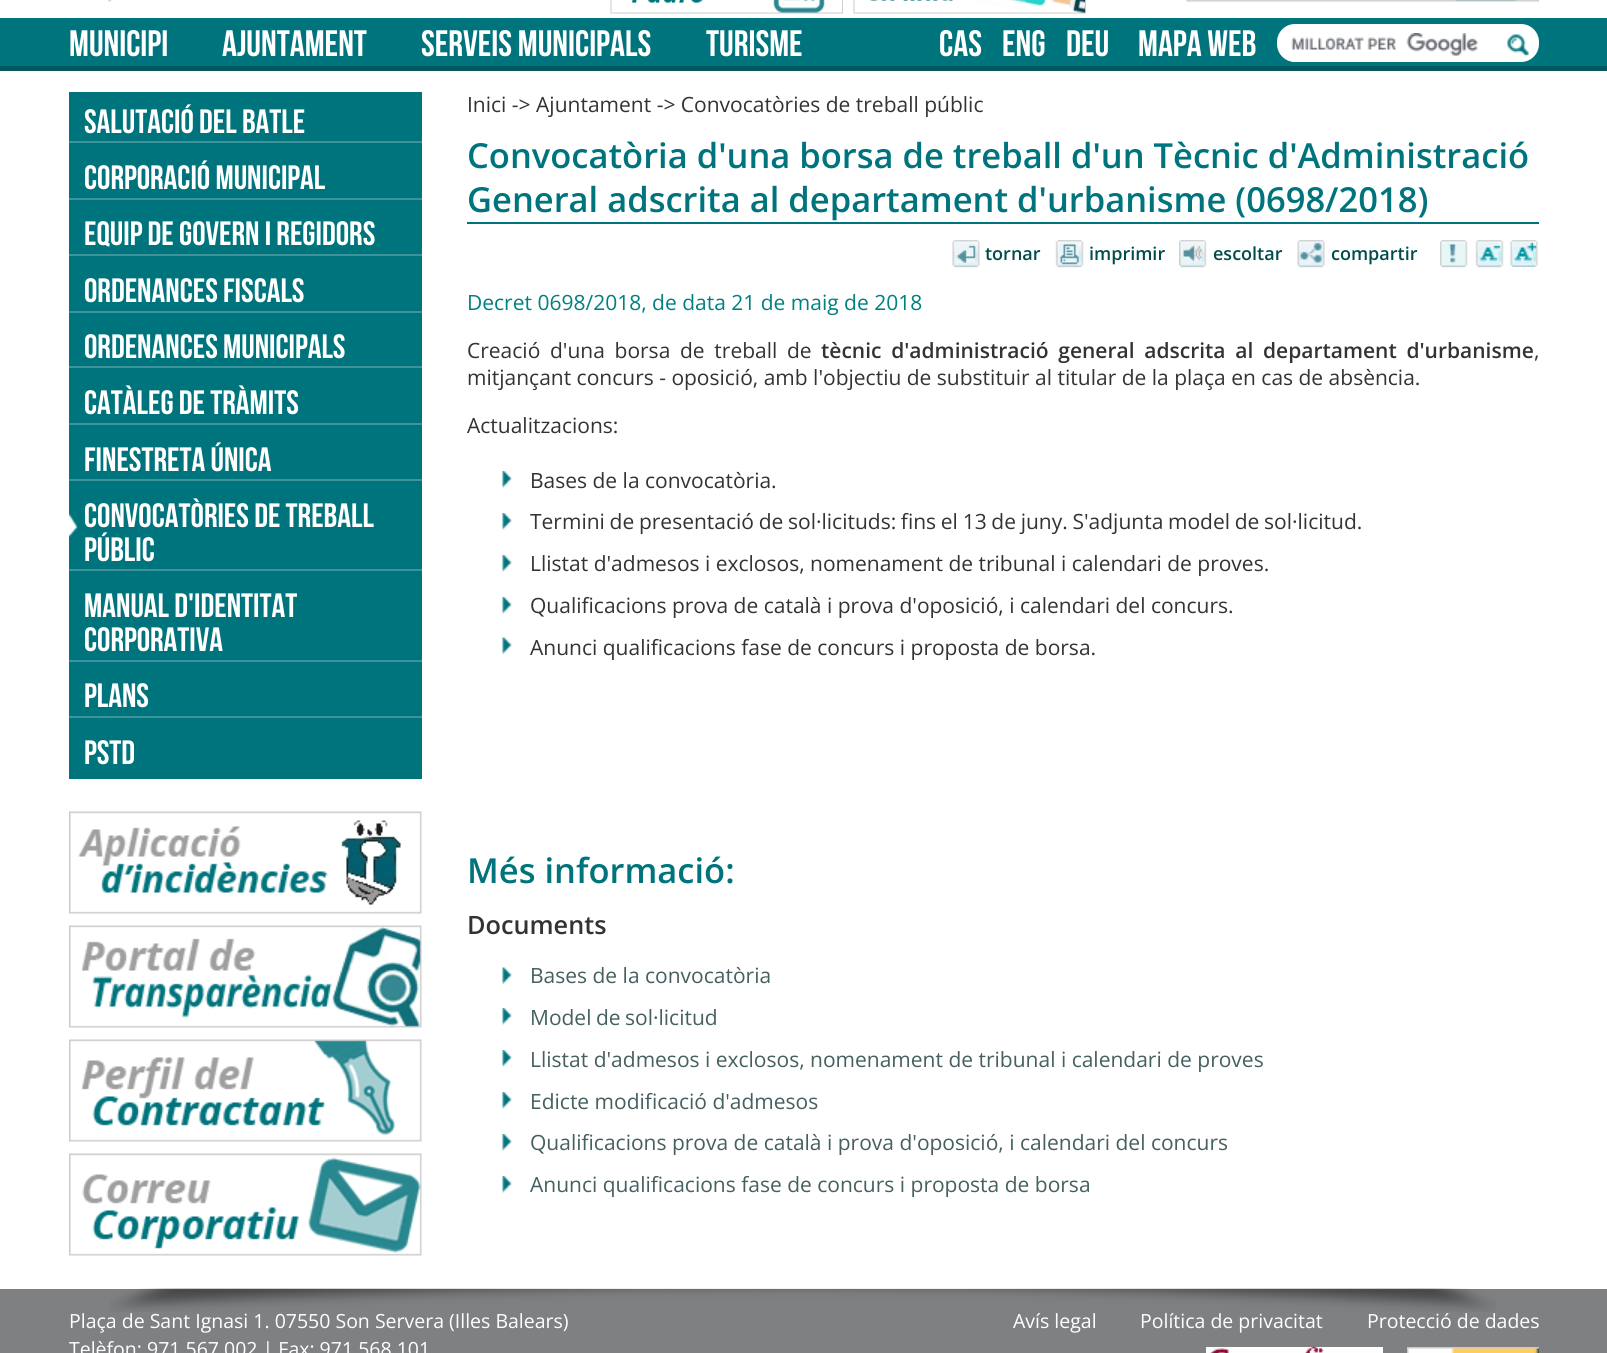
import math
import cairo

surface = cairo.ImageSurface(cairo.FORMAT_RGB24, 1607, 1353)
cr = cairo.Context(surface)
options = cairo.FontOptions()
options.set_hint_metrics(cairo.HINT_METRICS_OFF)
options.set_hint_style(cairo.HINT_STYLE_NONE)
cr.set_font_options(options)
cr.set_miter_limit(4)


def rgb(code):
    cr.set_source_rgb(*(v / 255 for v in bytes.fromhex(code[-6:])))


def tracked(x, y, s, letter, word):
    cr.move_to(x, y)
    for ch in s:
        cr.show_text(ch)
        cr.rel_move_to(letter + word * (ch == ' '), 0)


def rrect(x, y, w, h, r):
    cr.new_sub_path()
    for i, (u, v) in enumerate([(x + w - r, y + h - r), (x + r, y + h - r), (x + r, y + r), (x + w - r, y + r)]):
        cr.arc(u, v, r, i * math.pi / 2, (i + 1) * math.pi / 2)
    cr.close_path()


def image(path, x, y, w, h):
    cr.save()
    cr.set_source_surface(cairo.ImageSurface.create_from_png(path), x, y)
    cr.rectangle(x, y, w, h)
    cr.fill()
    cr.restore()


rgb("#ffffff")
cr.paint()
image("img/1.png", 107, 0, 5, 2)
image("img/2.png", 610, 0, 233, 14)
image("img/3.png", 853, 0, 233, 14)
image("img/4.png", 1186, 0, 353, 2)
rgb("#00747d")
cr.rectangle(0, 18, 1607, 48)
cr.fill()
rgb("#01585f")
cr.rectangle(0, 66, 1607, 5)
cr.fill()
rgb("#ffffff")
rrect(1277, 24, 262, 38, 18)
cr.fill()
cr.rectangle(1292, 61, 3, 1)
cr.fill()
image("img/5.png", 1291, 33, 187, 23)
image("img/6.png", 1507, 34, 22, 22)
for x, y, w, h, color in [
    (69, 92, 353, 687, "#00747d"),
    (69, 141, 353, 2, "#3d949a"),
    (69, 198, 353, 2, "#3d949a"),
    (69, 254, 353, 2, "#3d949a"),
    (69, 311, 353, 2, "#3d949a"),
    (69, 366, 353, 2, "#3d949a"),
    (69, 423, 353, 2, "#3d949a"),
    (69, 479, 353, 2, "#3d949a"),
    (69, 569, 353, 2, "#3d949a"),
]:
    rgb(color)
    cr.rectangle(x, y, w, h)
    cr.fill()
image("img/7.png", 69, 514, 9, 23)
cr.rectangle(69, 660, 353, 2)
cr.fill()
cr.rectangle(69, 716, 353, 2)
cr.fill()
image("img/8.png", 69, 811, 353, 103)
image("img/9.png", 69, 925, 353, 103)
image("img/10.png", 69, 1039, 353, 103)
image("img/11.png", 69, 1153, 353, 103)
rgb("#00747d")
cr.rectangle(467, 222, 1072, 2)
cr.fill()
image("img/12.png", 951, 240, 30, 28)
image("img/13.png", 1054, 240, 30, 28)
image("img/14.png", 1179, 240, 28, 28)
image("img/15.png", 1297, 240, 29, 28)
image("img/16.png", 1440, 240, 28, 28)
image("img/17.png", 1474, 240, 30, 28)
image("img/18.png", 1509, 240, 30, 27)
image("img/19.png", 502, 471, 10, 17)
image("img/19.png", 502, 513, 10, 17)
image("img/19.png", 502, 555, 10, 17)
image("img/19.png", 502, 597, 10, 17)
image("img/20.png", 502, 637, 10, 17)
image("img/20.png", 502, 967, 10, 17)
image("img/19.png", 502, 1008, 10, 17)
image("img/19.png", 502, 1050, 10, 17)
image("img/19.png", 502, 1092, 10, 17)
image("img/19.png", 502, 1134, 10, 17)
image("img/19.png", 502, 1176, 10, 17)
rgb("#7e8082")
cr.rectangle(0, 1289, 1607, 64)
cr.fill()
image("img/21.png", 109, 1288, 1387, 24)
image("img/22.png", 1206, 1347, 177, 6)
image("img/23.png", 1407, 1347, 132, 6)
cr.select_font_face("Bebas Neue")
cr.set_font_size(36.75)
rgb("#ffffff")
for x, y, s in [
    (69, 56, "MUNICIPI"),
    (222, 56, "AJUNTAMENT"),
    (421, 56, "SERVEIS MUNICIPALS"),
    (706, 56, "TURISME"),
    (939, 56, "CAS"),
    (1002, 56, "ENG"),
    (1066, 56, "DEU"),
    (1138, 56, "MAPA WEB"),
]:
    cr.move_to(x, y)
    cr.show_text(s)
cr.set_font_size(33.75)
for x, y, s in [
    (84, 133, "SALUTACIÓ DEL BATLE"),
    (84, 189, "CORPORACIÓ MUNICIPAL"),
    (84, 245, "EQUIP DE GOVERN I REGIDORS"),
    (84, 302, "ORDENANCES FISCALS"),
    (84, 358, "ORDENANCES MUNICIPALS"),
    (84, 414, "CATÀLEG DE TRÀMITS"),
    (84, 471, "FINESTRETA ÚNICA"),
    (84, 527, "CONVOCATÒRIES DE TREBALL"),
    (84, 561, "PÚBLIC"),
    (84, 617, "MANUAL D'IDENTITAT"),
    (84, 651, "CORPORATIVA"),
    (84, 707, "PLANS"),
    (84, 764, "PSTD"),
]:
    cr.move_to(x, y)
    cr.show_text(s)
cr.select_font_face("Open Sans")
cr.set_font_size(21)
rgb("#333333")
cr.move_to(467, 112)
cr.show_text("Inici -> Ajuntament -> Convocatòries de treball públic")
cr.select_font_face("Open Sans SemiBold")
cr.set_font_size(34.5)
rgb("#00747d")
cr.move_to(467, 168)
cr.show_text("Convocatòria d'una borsa de treball d'un Tècnic d'Administració")
cr.move_to(467, 212)
cr.show_text("General adscrita al departament d'urbanisme (0698/2018)")
cr.set_font_size(18)
rgb("#014b4b")
for x, y, s in [
    (985, 260, "tornar"),
    (1089, 260, "imprimir"),
    (1213, 260, "escoltar"),
    (1331, 260, "compartir"),
]:
    cr.move_to(x, y)
    cr.show_text(s)
cr.select_font_face("Open Sans")
cr.set_font_size(21)
rgb("#008080")
cr.move_to(467, 310)
cr.show_text("Decret 0698/2018, de data 21 de maig de 2018")
rgb("#333333")
tracked(467, 358, "Creació d'una borsa de treball de", 0, 4.25)
cr.select_font_face("Open Sans SemiBold")
tracked(821, 358, "tècnic d'administració general adscrita al departament d'urbanisme", 0, 4.25)
cr.select_font_face("Open Sans")
for x, y, s in [
    (1534, 358, ","),
    (467, 385, "mitjançant concurs - oposició, amb l'objectiu de substituir al titular de la plaça en cas de absència."),
    (467, 433, "Actualitzacions:"),
    (530, 488, "Bases de la convocatòria."),
]:
    cr.move_to(x, y)
    cr.show_text(s)
tracked(530, 529, "Termini de presentació de sol·licituds: fins el 13 de juny. S'adjunta model de sol·licitud.", 0, -0.75)
for x, y, s in [
    (530, 571, "Llistat d'admesos i exclosos, nomenament de tribunal i calendari de proves."),
    (530, 613, "Qualificacions prova de català i prova d'oposició, i calendari del concurs."),
    (530, 655, "Anunci qualificacions fase de concurs i proposta de borsa."),
]:
    cr.move_to(x, y)
    cr.show_text(s)
cr.select_font_face("Open Sans SemiBold")
cr.set_font_size(34.5)
rgb("#00747d")
cr.move_to(467, 883)
cr.show_text("Més informació:")
cr.set_font_size(25.25)
rgb("#333333")
cr.move_to(467, 934)
cr.show_text("Documents")
cr.select_font_face("Open Sans")
cr.set_font_size(21)
rgb("#465f5f")
cr.move_to(530, 983)
cr.show_text("Bases de la convocatòria")
tracked(530, 1025, "Model de sol·licitud", 0, -1)
for x, y, s in [
    (530, 1067, "Llistat d'admesos i exclosos, nomenament de tribunal i calendari de proves"),
    (530, 1109, "Edicte modificació d'admesos"),
    (530, 1150, "Qualificacions prova de català i prova d'oposició, i calendari del concurs"),
    (530, 1192, "Anunci qualificacions fase de concurs i proposta de borsa"),
]:
    cr.move_to(x, y)
    cr.show_text(s)
cr.set_font_size(19.5)
rgb("#ffffff")
for x, y, s in [
    (69, 1328, "Plaça de Sant Ignasi 1. 07550 Son Servera (Illes Balears)"),
    (69, 1356, "Telèfon: 971 567 002 | Fax: 971 568 101"),
    (1013, 1328, "Avís legal"),
    (1140, 1328, "Política de privacitat"),
    (1367, 1328, "Protecció de dades"),
]:
    cr.move_to(x, y)
    cr.show_text(s)
surface.write_to_png("page.png")
